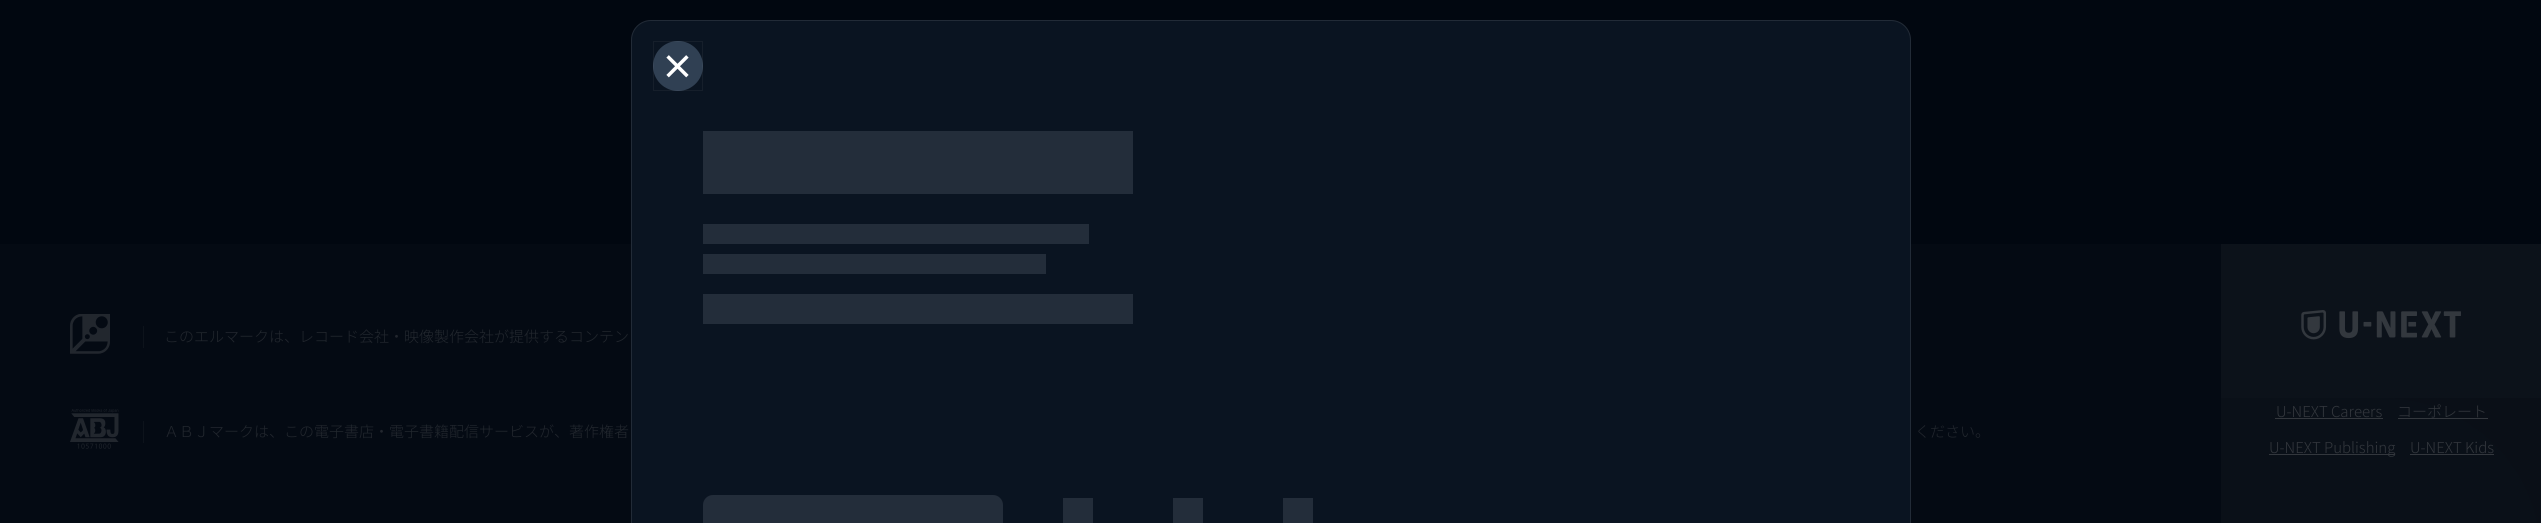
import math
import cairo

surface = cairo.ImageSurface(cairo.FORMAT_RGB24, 2541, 523)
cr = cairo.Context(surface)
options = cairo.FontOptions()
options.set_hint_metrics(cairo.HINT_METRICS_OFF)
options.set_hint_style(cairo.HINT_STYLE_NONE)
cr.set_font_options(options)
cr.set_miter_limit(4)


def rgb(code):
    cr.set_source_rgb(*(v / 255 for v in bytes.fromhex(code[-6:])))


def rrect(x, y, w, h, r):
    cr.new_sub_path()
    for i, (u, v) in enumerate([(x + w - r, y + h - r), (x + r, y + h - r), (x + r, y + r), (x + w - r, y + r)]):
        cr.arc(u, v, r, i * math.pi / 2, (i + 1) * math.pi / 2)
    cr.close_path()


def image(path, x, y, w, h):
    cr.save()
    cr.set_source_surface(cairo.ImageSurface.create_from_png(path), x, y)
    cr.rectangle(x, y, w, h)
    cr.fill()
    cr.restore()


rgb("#010710")
cr.paint()
rgb("#040a13")
cr.rectangle(0, 244, 2221, 279)
cr.fill()
rgb("#0a1421")
cr.new_path()
cr.move_to(651, 20)
cr.line_to(1891, 20)
cr.curve_to(1902, 20, 1911, 29, 1911, 40)
cr.line_to(1911, 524)
cr.line_to(631, 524)
cr.line_to(631, 40)
cr.curve_to(631, 29, 640, 20, 651, 20)
cr.close_path()
cr.fill()
rrect(631.5, 20.5, 1279, 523, 19.5)
cr.set_source_rgba(1, 1, 1, 0.1)
cr.set_line_width(1)
cr.stroke()
rgb("#304053")
cr.arc(678, 66, 25, 0, 2 * math.pi)
cr.fill()
cr.rectangle(653.5, 41.5, 49, 49)
cr.set_source_rgba(1, 1, 1, 0.05)
cr.stroke()
image("img/1.png", 666, 55, 23, 23)
for x, y, w, h, color in [
    (703, 131, 430, 63, "#232d3a"),
    (703, 224, 386, 20, "#232d3a"),
    (703, 254, 343, 20, "#232d3a"),
    (703, 294, 430, 30, "#232d3a"),
]:
    rgb(color)
    cr.rectangle(x, y, w, h)
    cr.fill()
cr.new_path()
cr.move_to(713, 495)
cr.line_to(993, 495)
cr.curve_to(998.5, 495, 1003, 499.5, 1003, 505)
cr.line_to(1003, 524)
cr.line_to(703, 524)
cr.line_to(703, 505)
cr.curve_to(703, 499.5, 707.5, 495, 713, 495)
cr.close_path()
cr.fill()
for x, y, w, h, color in [
    (1063, 498, 30, 25, "#232d3a"),
    (1173, 498, 30, 25, "#232d3a"),
    (1283, 498, 30, 25, "#232d3a"),
]:
    rgb(color)
    cr.rectangle(x, y, w, h)
    cr.fill()
image("img/2.png", 70, 314, 40, 40)
rgb("#0d131b")
cr.rectangle(143, 326, 1, 22)
cr.fill()
image("img/3.png", 70, 409, 49, 40)
cr.rectangle(143, 421, 1, 22)
cr.fill()
rgb("#0a0f17")
cr.rectangle(2382, 398, 159, 125)
cr.fill()
rgb("#0a1018")
cr.set_fill_rule(cairo.FILL_RULE_EVEN_ODD)
cr.new_path()
cr.move_to(2541, 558)
cr.curve_to(2541, 469, 2470, 398, 2381, 398)
cr.line_to(2221, 398)
cr.line_to(2221, 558)
cr.close_path()
cr.fill()
rgb("#0c121a")
cr.rectangle(2221, 244, 320, 154)
cr.fill()
image("img/4.png", 2301, 310, 160, 30)
rgb("#33373d")
cr.rectangle(2275, 418, 108, 1)
cr.fill()
cr.set_source_rgba(0.255, 0.267, 0.29, 0.75)
cr.rectangle(2398, 418, 90, 1)
cr.fill()
rgb("#33373d")
cr.rectangle(2269, 454, 126, 1)
cr.rectangle(2410, 454, 84, 1)
cr.fill()
cr.select_font_face("Noto Sans JP Light")
cr.set_font_size(15)
rgb("#22272e")
for x, y, s in [
    (164, 342, "このエルマークは、レコード会社・映像製作会社が提供するコンテン"),
    (164, 437, "ＡＢＪマークは、この電子書店・電子書籍配信サービスが、著作権者"),
    (1915, 437, "ください。"),
]:
    cr.move_to(x, y)
    cr.show_text(s)
rgb("#33373d")
for x, y, s in [
    (2276, 417, "U-NEXT Careers"),
    (2397, 417, "コーポレート"),
    (2269, 453, "U-NEXT Publishing"),
    (2410, 453, "U-NEXT Kids"),
]:
    cr.move_to(x, y)
    cr.show_text(s)
surface.write_to_png("page.png")
